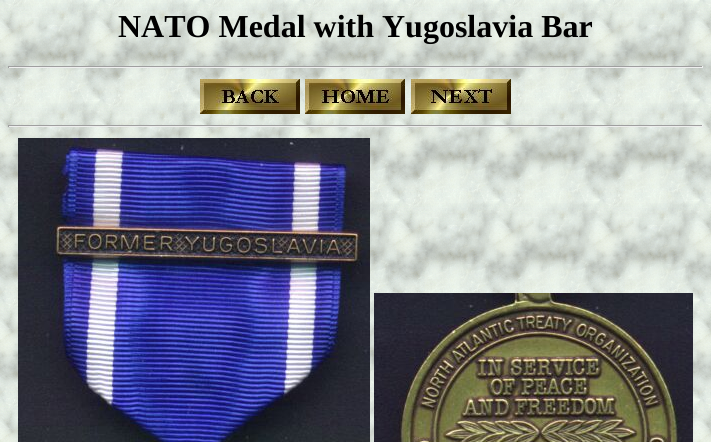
import math
import cairo

surface = cairo.ImageSurface(cairo.FORMAT_RGB24, 711, 442)
cr = cairo.Context(surface)
options = cairo.FontOptions()
options.set_hint_metrics(cairo.HINT_METRICS_OFF)
options.set_hint_style(cairo.HINT_STYLE_NONE)
cr.set_font_options(options)
cr.set_miter_limit(4)


def rgb(code):
    cr.set_source_rgb(*(v / 255 for v in bytes.fromhex(code[-6:])))


def image(path, x, y, w, h):
    cr.save()
    cr.set_source_surface(cairo.ImageSurface.create_from_png(path), x, y)
    cr.rectangle(x, y, w, h)
    cr.fill()
    cr.restore()


rgb("#ffffff")
cr.paint()
image("img/1.png", 0, 0, 711, 442)
for x, y, w, h, color in [
    (8, 66, 695, 1, "#9f9f9f"),
    (702, 66, 1, 2, "#eeeeee"),
    (8, 67, 695, 1, "#eeeeee"),
    (8, 66, 1, 2, "#9f9f9f"),
]:
    rgb(color)
    cr.rectangle(x, y, w, h)
    cr.fill()
image("img/2.png", 200, 79, 100, 35)
image("img/3.png", 305, 79, 100, 35)
image("img/4.png", 411, 79, 100, 35)
for x, y, w, h, color in [
    (8, 125, 695, 1, "#9f9f9f"),
    (702, 125, 1, 2, "#eeeeee"),
    (8, 126, 695, 1, "#eeeeee"),
    (8, 125, 1, 2, "#9f9f9f"),
]:
    rgb(color)
    cr.rectangle(x, y, w, h)
    cr.fill()
image("img/5.png", 18, 138, 352, 304)
image("img/6.png", 374, 293, 319, 149)
cr.select_font_face("Liberation Serif", cairo.FONT_SLANT_NORMAL, cairo.FONT_WEIGHT_BOLD)
cr.set_font_size(32)
rgb("#000000")
cr.move_to(118, 37)
cr.show_text("NATO Medal with Yugoslavia Bar")
surface.write_to_png("page.png")
